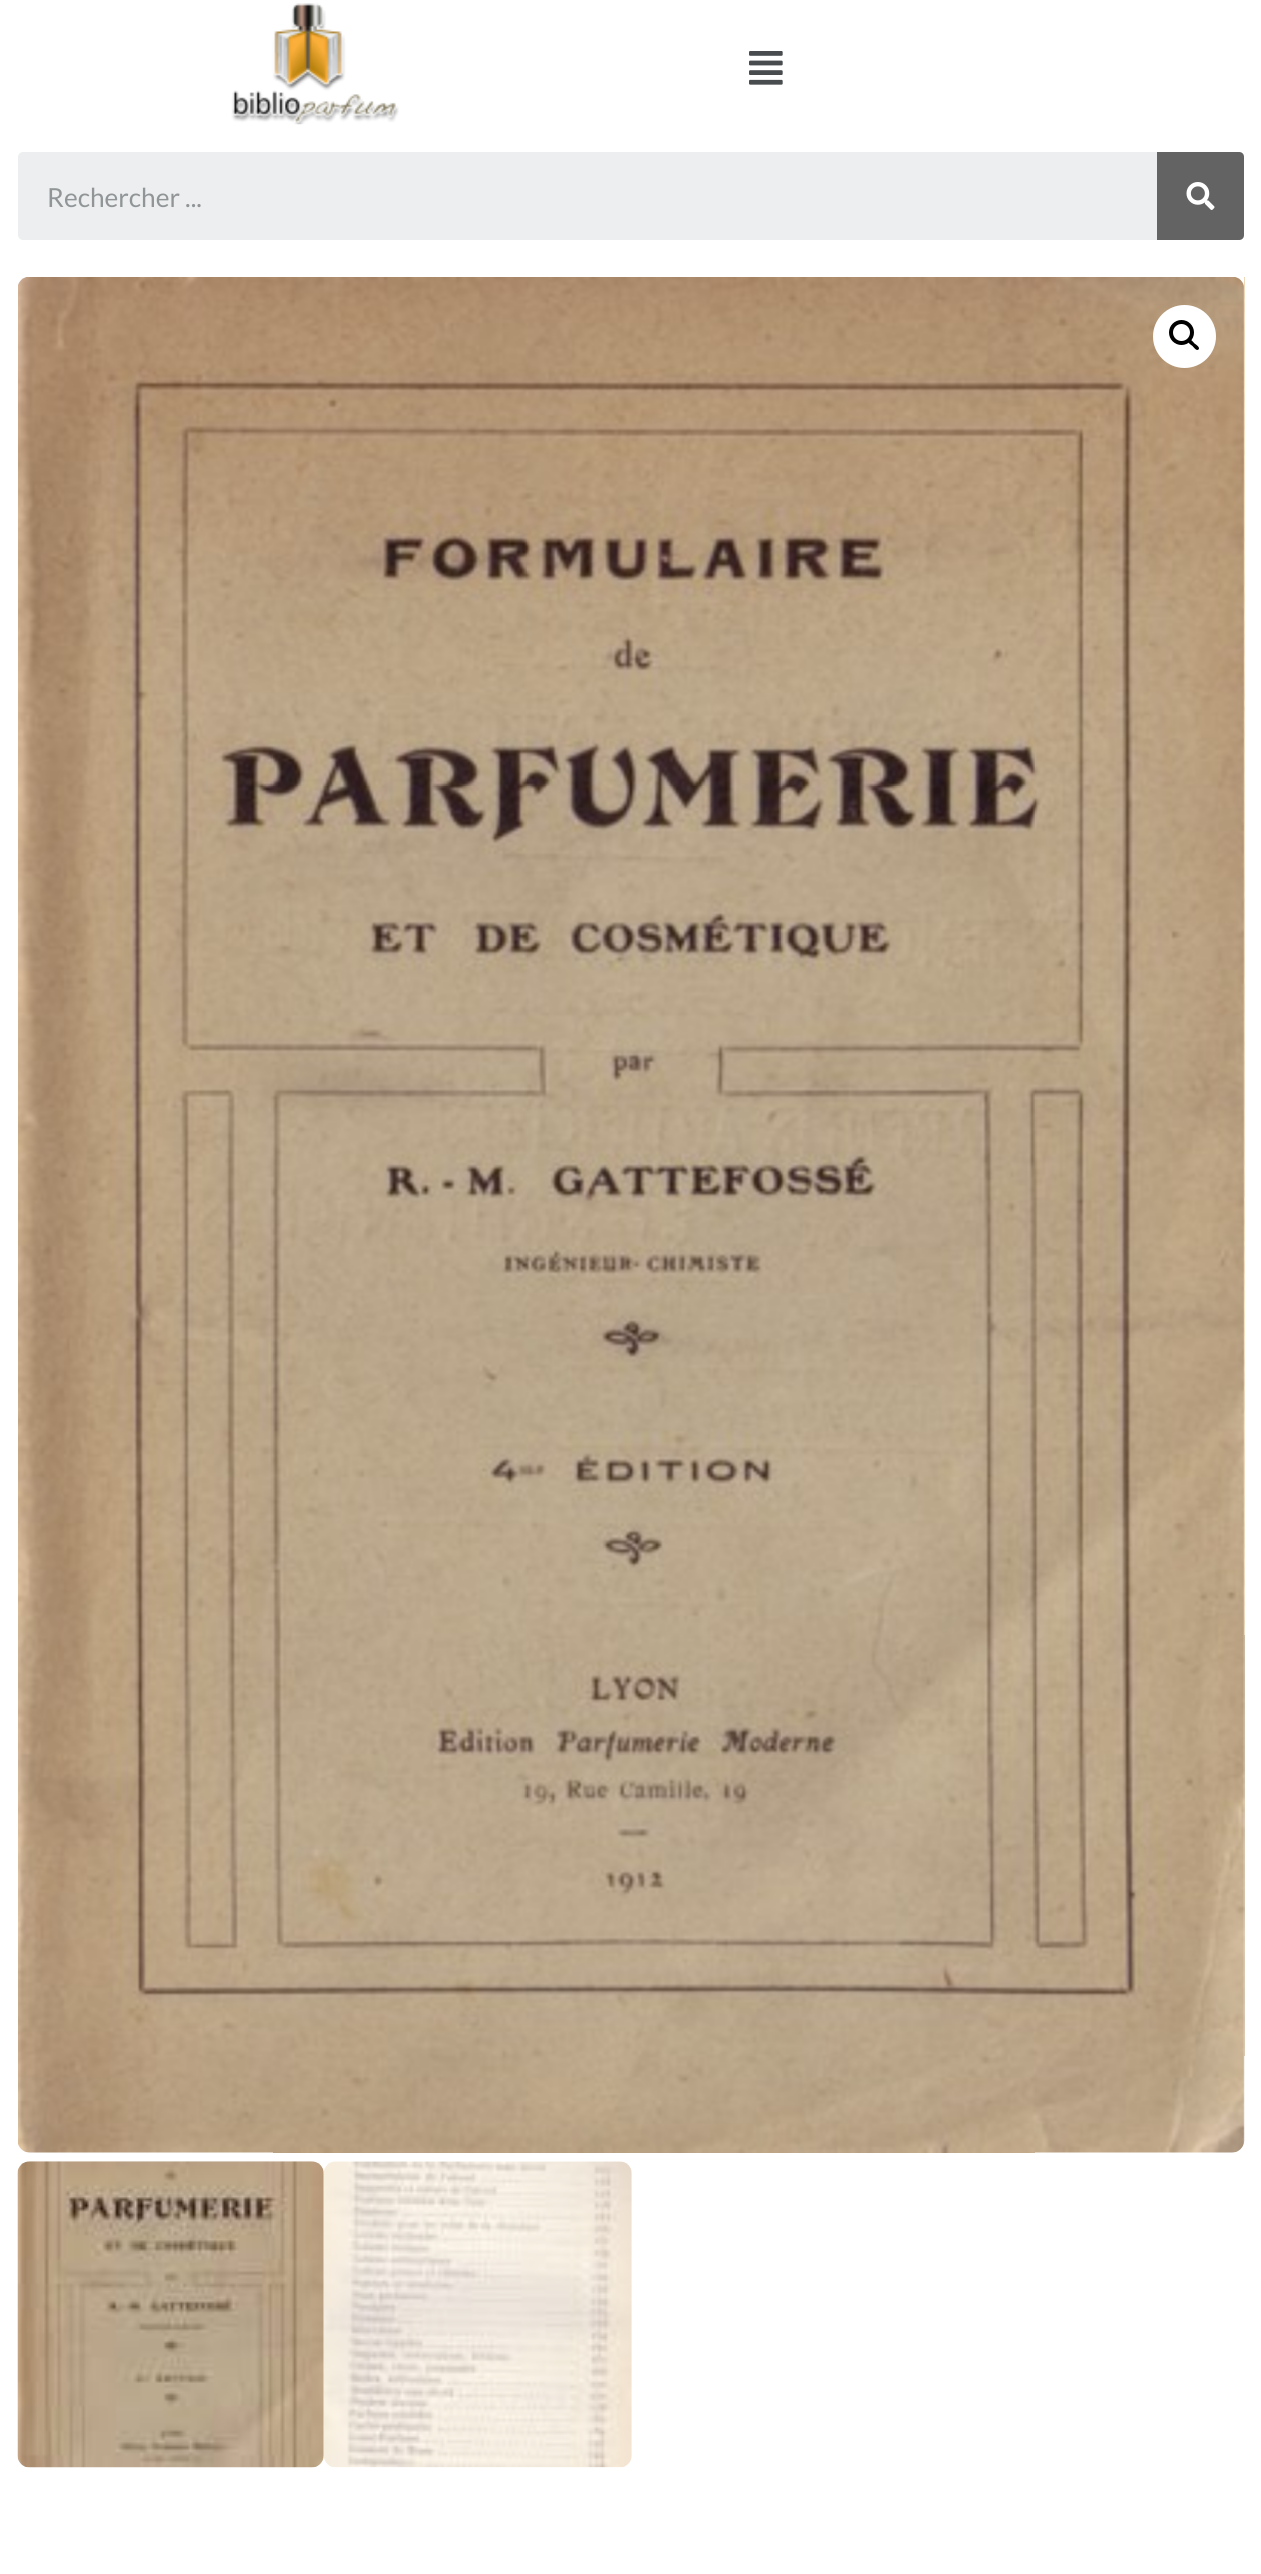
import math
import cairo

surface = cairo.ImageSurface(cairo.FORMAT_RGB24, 1261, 2574)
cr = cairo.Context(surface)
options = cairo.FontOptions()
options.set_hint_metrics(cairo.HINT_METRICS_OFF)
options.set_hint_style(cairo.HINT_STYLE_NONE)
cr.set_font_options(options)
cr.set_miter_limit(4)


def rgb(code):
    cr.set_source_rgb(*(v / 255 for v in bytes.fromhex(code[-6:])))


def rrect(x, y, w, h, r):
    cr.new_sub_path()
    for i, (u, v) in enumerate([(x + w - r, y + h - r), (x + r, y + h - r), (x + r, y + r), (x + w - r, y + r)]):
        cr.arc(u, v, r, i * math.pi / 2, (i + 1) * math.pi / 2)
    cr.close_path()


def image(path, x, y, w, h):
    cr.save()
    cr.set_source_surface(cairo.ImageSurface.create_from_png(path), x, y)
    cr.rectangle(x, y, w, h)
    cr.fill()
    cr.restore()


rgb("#ffffff")
cr.paint()
image("img/1.png", 231, 3, 168, 122)
image("img/2.png", 749, 51, 34, 34)
rgb("#eceeef")
rrect(18, 152, 1226, 88, 5)
cr.fill()
rgb("#636363")
cr.new_path()
cr.move_to(1157, 152)
cr.line_to(1239, 152)
cr.curve_to(1242, 152, 1244, 154, 1244, 157)
cr.line_to(1244, 235)
cr.curve_to(1244, 238, 1242, 240, 1239, 240)
cr.line_to(1157, 240)
cr.close_path()
cr.fill()
image("img/3.png", 1186, 182, 29, 28)
image("img/4.png", 18, 277, 1227, 1876)
image("img/5.png", 1244, 277, 1, 1358)
rgb("#ffffff")
cr.arc(1184.5, 336.5, 31.5, 0, 2 * math.pi)
cr.fill()
cr.arc(1181.5, 332.5, 10.5, 0, 2 * math.pi)
rgb("#000000")
cr.set_line_width(4)
cr.stroke()
cr.new_path()
cr.move_to(1188.5, 340)
cr.curve_to(1190.5, 338, 1193.5, 342.5, 1194.5, 343.5)
cr.curve_to(1196, 344.5, 1200.5, 347.5, 1198.5, 349.5)
cr.curve_to(1196.5, 351.5, 1193.5, 347, 1192.5, 346)
cr.curve_to(1191, 345, 1186.5, 342, 1188.5, 340)
cr.close_path()
cr.fill()
image("img/6.png", 17, 2161, 307, 307)
image("img/7.png", 324, 2161, 308, 307)
cr.select_font_face("Lato")
cr.set_font_size(26.25)
rgb("#919597")
cr.move_to(47, 207)
cr.show_text("Rechercher ...")
surface.write_to_png("page.png")
